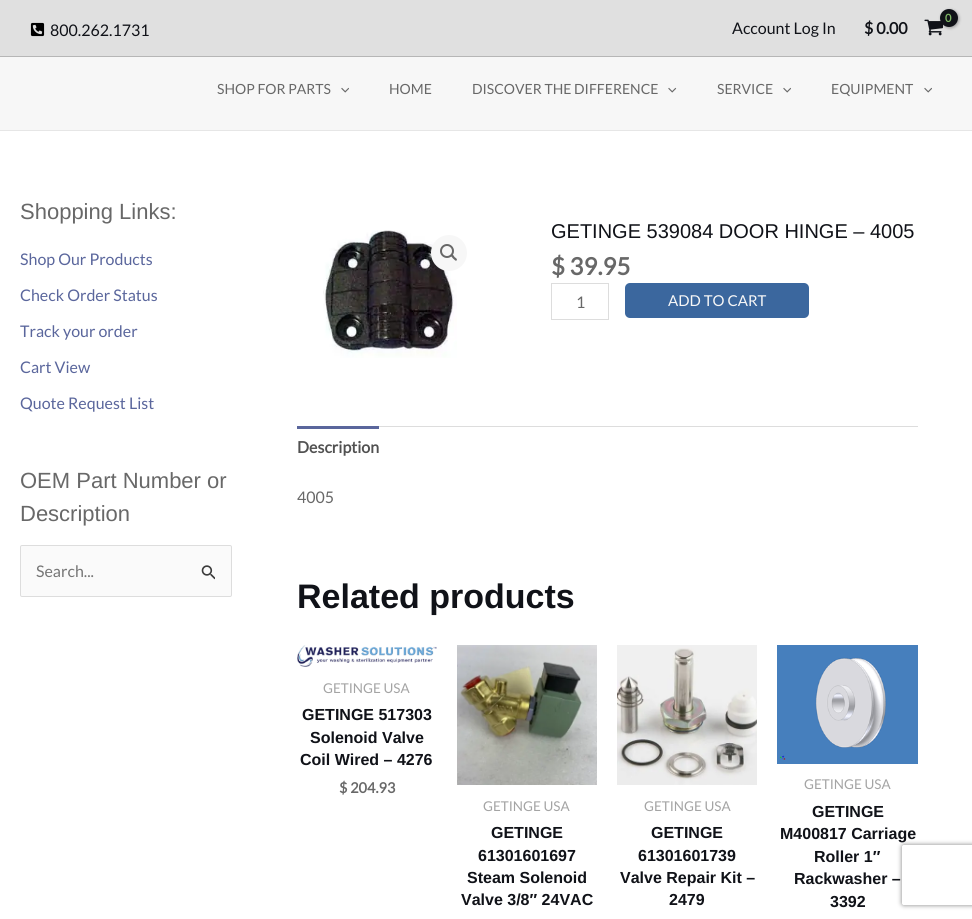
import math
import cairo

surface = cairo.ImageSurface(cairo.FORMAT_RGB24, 972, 919)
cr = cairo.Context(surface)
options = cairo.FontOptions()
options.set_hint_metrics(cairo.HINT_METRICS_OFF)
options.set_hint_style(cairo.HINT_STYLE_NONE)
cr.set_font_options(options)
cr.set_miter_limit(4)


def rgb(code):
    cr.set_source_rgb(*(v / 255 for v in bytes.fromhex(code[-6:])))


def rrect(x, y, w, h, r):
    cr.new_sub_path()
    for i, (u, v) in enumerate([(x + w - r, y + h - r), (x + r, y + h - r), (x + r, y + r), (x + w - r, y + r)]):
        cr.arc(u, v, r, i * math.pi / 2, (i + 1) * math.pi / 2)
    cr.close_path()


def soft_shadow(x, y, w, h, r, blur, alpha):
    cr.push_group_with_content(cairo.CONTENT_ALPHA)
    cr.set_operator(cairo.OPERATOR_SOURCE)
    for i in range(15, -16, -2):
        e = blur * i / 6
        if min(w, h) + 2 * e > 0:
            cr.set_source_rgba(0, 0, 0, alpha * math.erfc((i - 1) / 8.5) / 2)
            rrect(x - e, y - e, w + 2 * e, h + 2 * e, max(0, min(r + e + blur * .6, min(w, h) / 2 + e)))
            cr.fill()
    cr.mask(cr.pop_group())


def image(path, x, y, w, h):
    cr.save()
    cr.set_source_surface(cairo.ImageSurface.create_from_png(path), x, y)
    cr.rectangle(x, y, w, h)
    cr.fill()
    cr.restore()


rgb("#ffffff")
cr.paint()
rgb("#e0e0e0")
cr.rectangle(0, 0, 972, 56)
cr.fill()
rgb("#b6b6b6")
cr.rectangle(0, 56, 972, 1)
cr.fill()
image("img/1.png", 30, 22, 15, 15)
image("img/2.png", 924, 19, 19, 17)
rgb("#000000")
soft_shadow(941, 10, 18, 18, 9, 1.5, 0.3)
rgb("#101218")
cr.arc(949, 18, 9, 0, 2 * math.pi)
cr.fill()
rgb("#f7f7f7")
cr.rectangle(0, 57, 972, 73)
cr.fill()
rgb("#e6e6e6")
cr.rectangle(0, 130, 972, 1)
cr.fill()
image("img/3.png", 341, 87, 8, 6)
image("img/4.png", 668, 87, 9, 6)
image("img/3.png", 783, 87, 8, 6)
image("img/3.png", 924, 87, 8, 6)
rgb("#fafafa")
rrect(20.5, 545.5, 211, 51, 1.5)
cr.fill_preserve()
rgb("#dddddd")
cr.set_line_width(1)
cr.stroke()
image("img/5.png", 201, 565, 14, 15)
image("img/6.png", 323, 230, 134, 128)
rgb("#f7f7f7")
cr.arc(449, 253, 18, 0, 2 * math.pi)
cr.fill()
cr.arc(447, 251, 6, 0, 2 * math.pi)
rgb("#686868")
cr.set_line_width(2)
cr.stroke()
cr.new_path()
cr.move_to(451, 254.5)
cr.curve_to(452.5, 253.5, 454, 256, 454.5, 257)
cr.curve_to(455, 257.5, 458, 259, 456.5, 260.5)
cr.curve_to(455.5, 261.5, 454, 259, 453, 258.5)
cr.curve_to(452.5, 257.5, 450, 256, 451, 254.5)
cr.close_path()
cr.fill()
cr.rectangle(551.5, 283.5, 57, 36)
rgb("#dddddd")
cr.set_line_width(1)
cr.stroke()
rgb("#3b679e")
rrect(625, 283, 184, 35, 5)
cr.fill()
rgb("#dddddd")
cr.rectangle(379, 426, 539, 1)
cr.fill()
rgb("#5a669c")
cr.rectangle(297, 426, 82, 3)
cr.fill()
image("img/7.png", 297, 645, 140, 22)
image("img/8.png", 457, 645, 140, 140)
image("img/9.png", 617, 645, 140, 140)
image("img/10.png", 777, 645, 141, 119)
cr.save()
cr.set_fill_rule(cairo.FILL_RULE_EVEN_ODD)
cr.new_path()
cr.move_to(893, 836)
cr.line_to(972, 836)
cr.line_to(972, 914)
cr.line_to(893, 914)
cr.close_path()
cr.move_to(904, 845)
cr.line_to(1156, 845)
cr.curve_to(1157, 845, 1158, 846, 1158, 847)
cr.line_to(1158, 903)
cr.curve_to(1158, 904, 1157, 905, 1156, 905)
cr.line_to(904, 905)
cr.curve_to(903, 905, 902, 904, 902, 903)
cr.line_to(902, 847)
cr.curve_to(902, 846, 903, 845, 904, 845)
cr.close_path()
cr.clip()
rgb("#808080")
soft_shadow(902, 845, 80, 60, 2, 2.5, 1)
cr.restore()
cr.select_font_face("Lato")
cr.set_font_size(16)
rgb("#101218")
cr.move_to(50, 36)
cr.show_text("800.262.1731")
cr.move_to(732, 34)
cr.show_text("Account Log In")
cr.select_font_face("Lato", cairo.FONT_SLANT_NORMAL, cairo.FONT_WEIGHT_BOLD)
cr.set_font_size(11)
rgb("#7fb865")
cr.move_to(945, 22)
cr.show_text("0")
cr.set_font_size(16)
rgb("#101218")
cr.move_to(864, 34)
cr.show_text("$ 0.00")
cr.select_font_face("Lato")
cr.set_font_size(14)
rgb("#686868")
for x, y, s in [
    (217, 94, "SHOP FOR PARTS"),
    (389, 94, "HOME"),
    (472, 94, "DISCOVER THE DIFFERENCE"),
    (717, 94, "SERVICE"),
    (831, 94, "EQUIPMENT"),
]:
    cr.move_to(x, y)
    cr.show_text(s)
cr.select_font_face("Liberation Sans")
cr.set_font_size(22)
cr.move_to(20, 219)
cr.show_text("Shopping Links:")
cr.select_font_face("Lato")
cr.set_font_size(16)
rgb("#5a669c")
for x, y, s in [
    (20, 265, "Shop Our Products"),
    (20, 301, "Check Order Status"),
    (20, 337, "Track your order"),
    (20, 373, "Cart View"),
    (20, 409, "Quote Request List"),
]:
    cr.move_to(x, y)
    cr.show_text(s)
cr.select_font_face("Liberation Sans")
cr.set_font_size(22)
rgb("#686868")
cr.move_to(20, 488)
cr.show_text("OEM Part Number or")
cr.move_to(20, 521)
cr.show_text("Description")
cr.select_font_face("Lato")
cr.set_font_size(16)
rgb("#757575")
cr.move_to(36, 577)
cr.show_text("Search...")
cr.select_font_face("Liberation Sans")
cr.set_font_size(20)
rgb("#101218")
cr.move_to(551, 238)
cr.show_text("GETINGE 539084 DOOR HINGE – 4005")
cr.select_font_face("Lato", cairo.FONT_SLANT_NORMAL, cairo.FONT_WEIGHT_BOLD)
cr.set_font_size(24)
rgb("#686868")
cr.move_to(551, 275)
cr.show_text("$ 39.95")
cr.select_font_face("Lato")
cr.set_font_size(16)
cr.move_to(576, 308)
cr.show_text("1")
cr.set_font_size(15)
rgb("#f7f7f7")
cr.move_to(668, 306)
cr.show_text("ADD TO CART")
cr.select_font_face("Lato", cairo.FONT_SLANT_NORMAL, cairo.FONT_WEIGHT_BOLD)
cr.set_font_size(16)
rgb("#515151")
cr.move_to(297, 453)
cr.show_text("Description")
cr.select_font_face("Lato")
rgb("#686868")
cr.move_to(297, 503)
cr.show_text("4005")
cr.select_font_face("Liberation Sans", cairo.FONT_SLANT_NORMAL, cairo.FONT_WEIGHT_BOLD)
cr.set_font_size(34)
rgb("#101218")
cr.move_to(297, 608)
cr.show_text("Related products")
cr.select_font_face("Lato")
cr.set_font_size(13.5)
rgb("#a4a4a4")
cr.move_to(323, 693)
cr.show_text("GETINGE USA")
cr.select_font_face("Liberation Sans", cairo.FONT_SLANT_NORMAL, cairo.FONT_WEIGHT_BOLD)
cr.set_font_size(16)
rgb("#101218")
for x, y, s in [
    (302, 720, "GETINGE 517303"),
    (310, 743, "Solenoid Valve"),
    (300, 765, "Coil Wired – 4276"),
]:
    cr.move_to(x, y)
    cr.show_text(s)
cr.select_font_face("Lato", cairo.FONT_SLANT_NORMAL, cairo.FONT_WEIGHT_BOLD)
cr.set_font_size(14.5)
rgb("#686868")
cr.move_to(339, 793)
cr.show_text("$ 204.93")
cr.select_font_face("Lato")
cr.set_font_size(13.5)
rgb("#a4a4a4")
cr.move_to(483, 811)
cr.show_text("GETINGE USA")
cr.select_font_face("Liberation Sans", cairo.FONT_SLANT_NORMAL, cairo.FONT_WEIGHT_BOLD)
cr.set_font_size(16)
rgb("#101218")
for x, y, s in [
    (491, 838, "GETINGE"),
    (478, 861, "61301601697"),
    (467, 883, "Steam Solenoid"),
    (461, 905, "Valve 3/8″ 24VAC"),
]:
    cr.move_to(x, y)
    cr.show_text(s)
cr.select_font_face("Lato")
cr.set_font_size(13.5)
rgb("#a4a4a4")
cr.move_to(644, 811)
cr.show_text("GETINGE USA")
cr.select_font_face("Liberation Sans", cairo.FONT_SLANT_NORMAL, cairo.FONT_WEIGHT_BOLD)
cr.set_font_size(16)
rgb("#101218")
for x, y, s in [
    (651, 838, "GETINGE"),
    (638, 861, "61301601739"),
    (620, 883, "Valve Repair Kit –"),
    (669, 905, "2479"),
]:
    cr.move_to(x, y)
    cr.show_text(s)
cr.select_font_face("Lato")
cr.set_font_size(13.5)
rgb("#a4a4a4")
cr.move_to(804, 789)
cr.show_text("GETINGE USA")
cr.select_font_face("Liberation Sans", cairo.FONT_SLANT_NORMAL, cairo.FONT_WEIGHT_BOLD)
cr.set_font_size(16)
rgb("#101218")
for x, y, s in [
    (812, 817, "GETINGE"),
    (780, 839, "M400817 Carriage"),
    (814, 862, "Roller 1″"),
    (794, 884, "Rackwasher –"),
    (830, 907, "3392"),
]:
    cr.move_to(x, y)
    cr.show_text(s)
surface.write_to_png("page.png")
